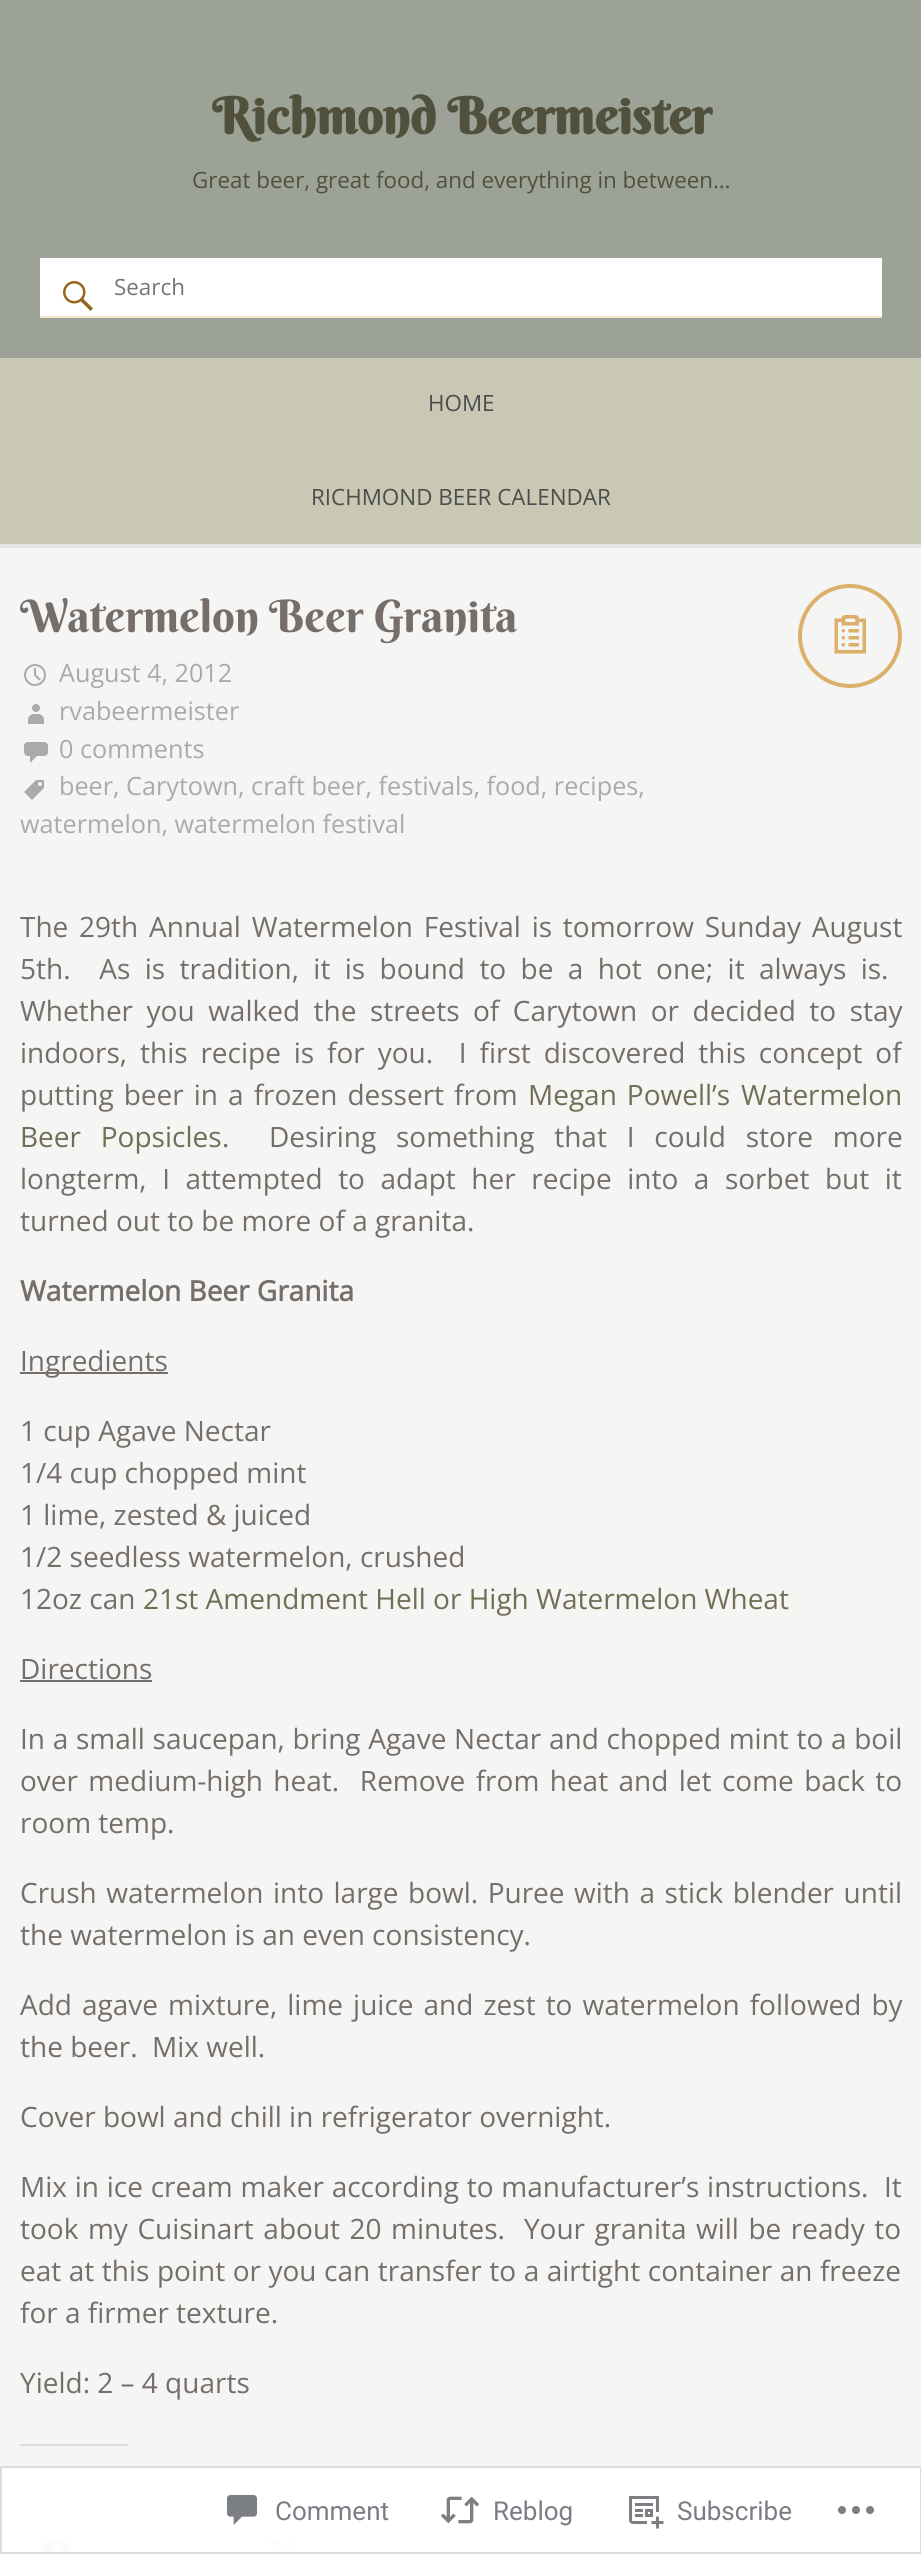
import math
import cairo

surface = cairo.ImageSurface(cairo.FORMAT_RGB24, 921, 2554)
cr = cairo.Context(surface)
options = cairo.FontOptions()
options.set_hint_metrics(cairo.HINT_METRICS_OFF)
options.set_hint_style(cairo.HINT_STYLE_NONE)
cr.set_font_options(options)
cr.set_miter_limit(4)


def rgb(code):
    cr.set_source_rgb(*(v / 255 for v in bytes.fromhex(code[-6:])))


def tracked(x, y, s, letter, word):
    cr.move_to(x, y)
    for ch in s:
        cr.show_text(ch)
        cr.rel_move_to(letter + word * (ch == ' '), 0)


def image(path, x, y, w, h):
    cr.save()
    cr.set_source_surface(cairo.ImageSurface.create_from_png(path), x, y)
    cr.rectangle(x, y, w, h)
    cr.fill()
    cr.restore()


rgb("#9ca296")
cr.paint()
rgb("#ffffff")
cr.rectangle(40, 258, 842, 58)
cr.fill()
image("img/1.png", 63, 281, 30, 30)
for x, y, w, h, color in [
    (40, 316, 842, 2, "#f7e4c8"),
    (0, 544, 921, 4, "#e4e5e3"),
    (0, 358, 921, 186, "#c9c8b5"),
    (0, 548, 921, 1918, "#f5f6f4"),
    (0, 2466, 921, 88, "#ffffff"),
]:
    rgb(color)
    cr.rectangle(x, y, w, h)
    cr.fill()
cr.arc(850, 636, 50, 0, 2 * math.pi)
rgb("#dcb06a")
cr.set_line_width(4)
cr.stroke()
image("img/2.png", 834, 615, 32, 39)
image("img/3.png", 24, 664, 22, 22)
image("img/4.png", 28, 704, 16, 20)
image("img/5.png", 24, 742, 24, 21)
image("img/6.png", 24, 780, 20, 20)
for x, y, w, h, color in [
    (20, 1372, 148, 2, "#756e6c"),
    (20, 1680, 132, 2, "#756e6c"),
    (20, 2444, 108, 2, "#dcdcde"),
]:
    rgb(color)
    cr.rectangle(x, y, w, h)
    cr.fill()
image("img/7.png", 41, 2539, 30, 15)
image("img/8.png", 269, 2540, 26, 14)
cr.rectangle(1, 2467, 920, 86)
cr.set_source_rgba(0.863, 0.863, 0.871, 0.98)
cr.set_line_width(2)
cr.stroke()
image("img/9.png", 227, 2495, 30, 30)
image("img/10.png", 440, 2496, 40, 28)
image("img/11.png", 629, 2496, 35, 33)
image("img/12.png", 838, 2506, 36, 8)
cr.select_font_face("Berkshire Swash", cairo.FONT_SLANT_NORMAL, cairo.FONT_WEIGHT_BOLD)
cr.set_font_size(50.5)
rgb("#51503d")
cr.move_to(212, 134)
cr.show_text("Richmond Beermeister")
cr.select_font_face("Open Sans")
cr.set_font_size(22.4)
cr.move_to(192, 188)
cr.show_text("Great beer, great food, and everything in between…")
rgb("#757575")
cr.move_to(114, 295)
cr.show_text("Search")
rgb("#4c4c4c")
cr.move_to(428, 411)
cr.show_text("HOME")
cr.move_to(311, 505)
cr.show_text("RICHMOND BEER CALENDAR")
cr.select_font_face("Berkshire Swash")
cr.set_font_size(44.75)
rgb("#756e6c")
cr.move_to(20, 632)
cr.show_text("Watermelon Beer Granita")
cr.select_font_face("Open Sans")
cr.set_font_size(25.2)
rgb("#aaaaaa")
for x, y, s in [
    (59, 682, "August 4, 2012"),
    (59, 720, "rvabeermeister"),
    (59, 758, "0 comments"),
    (59, 795, "beer, Carytown, craft beer, festivals, food, recipes,"),
    (20, 833, "watermelon, watermelon festival"),
]:
    cr.move_to(x, y)
    cr.show_text(s)
cr.set_font_size(28)
rgb("#756e6c")
tracked(20, 937, "The 29th Annual Watermelon Festival is tomorrow Sunday August", 0, 3.5)
tracked(20, 979, "5th.  As is tradition, it is bound to be a hot one; it always is.", 0, 7.1)
tracked(20, 1021, "Whether you walked the streets of Carytown or decided to stay", 0, 6.25)
cr.save()
cr.rectangle(20, 904, 882, 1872)
cr.clip()
tracked(20, 1063, "indoors, this recipe is for you.  I first discovered this concept of", 0, 5.6)
cr.restore()
tracked(20, 1105, "putting beer in a frozen dessert from", 0, 2.75)
rgb("#716e55")
tracked(528, 1105, "Megan Powell’s", 0, 2.75)
cr.move_to(741, 1105)
cr.show_text("Watermelon")
tracked(20, 1147, "Beer Popsicles", 0, 12.5)
rgb("#756e6c")
tracked(222, 1147, ".  Desiring something that I could store more", 0, 12.5)
tracked(20, 1189, "longterm, I attempted to adapt her recipe into a sorbet but it", 0, 8.25)
cr.move_to(20, 1231)
cr.show_text("turned out to be more of a granita.")
cr.select_font_face("Open Sans", cairo.FONT_SLANT_NORMAL, cairo.FONT_WEIGHT_BOLD)
cr.move_to(20, 1301)
cr.show_text("Watermelon Beer Granita")
cr.select_font_face("Open Sans")
for x, y, s in [
    (20, 1371, "Ingredients"),
    (20, 1441, "1 cup Agave Nectar"),
    (20, 1483, "1/4 cup chopped mint"),
    (20, 1525, "1 lime, zested & juiced"),
    (20, 1567, "1/2 seedless watermelon, crushed"),
    (20, 1609, "12oz can"),
]:
    cr.move_to(x, y)
    cr.show_text(s)
rgb("#716e55")
cr.move_to(143, 1609)
cr.show_text("21st Amendment Hell or High Watermelon Wheat")
rgb("#756e6c")
cr.move_to(20, 1679)
cr.show_text("Directions")
tracked(20, 1749, "In a small saucepan, bring Agave Nectar and chopped mint to a boil", 0, 0.4)
tracked(20, 1791, "over medium-high heat.  Remove from heat and let come back to", 0, 3.1)
cr.move_to(20, 1833)
cr.show_text("room temp.")
tracked(20, 1903, "Crush watermelon into large bowl. Puree with a stick blender until", 0, 2.25)
cr.move_to(20, 1945)
cr.show_text("the watermelon is an even consistency.")
tracked(20, 2015, "Add agave mixture, lime juice and zest to watermelon followed by", 0, 2.75)
cr.move_to(20, 2057)
cr.show_text("the beer.  Mix well.")
cr.move_to(20, 2127)
cr.show_text("Cover bowl and chill in refrigerator overnight.")
tracked(20, 2197, "Mix in ice cream maker according to manufacturer’s instructions.  It", 0, 0.5)
tracked(20, 2239, "took my Cuisinart about 20 minutes.  Your granita will be ready to", 0, 2.25)
tracked(20, 2281, "eat at this point or you can transfer to a airtight container an freeze", 0, 0.25)
cr.move_to(20, 2323)
cr.show_text("for a firmer texture.")
cr.move_to(20, 2393)
cr.show_text("Yield: 2 – 4 quarts")
cr.select_font_face("Roboto")
cr.set_font_size(26)
rgb("#7a7e84")
for x, y, s in [
    (275, 2520, "Comment"),
    (493, 2520, "Reblog"),
    (677, 2520, "Subscribe"),
]:
    cr.move_to(x, y)
    cr.show_text(s)
surface.write_to_png("page.png")
